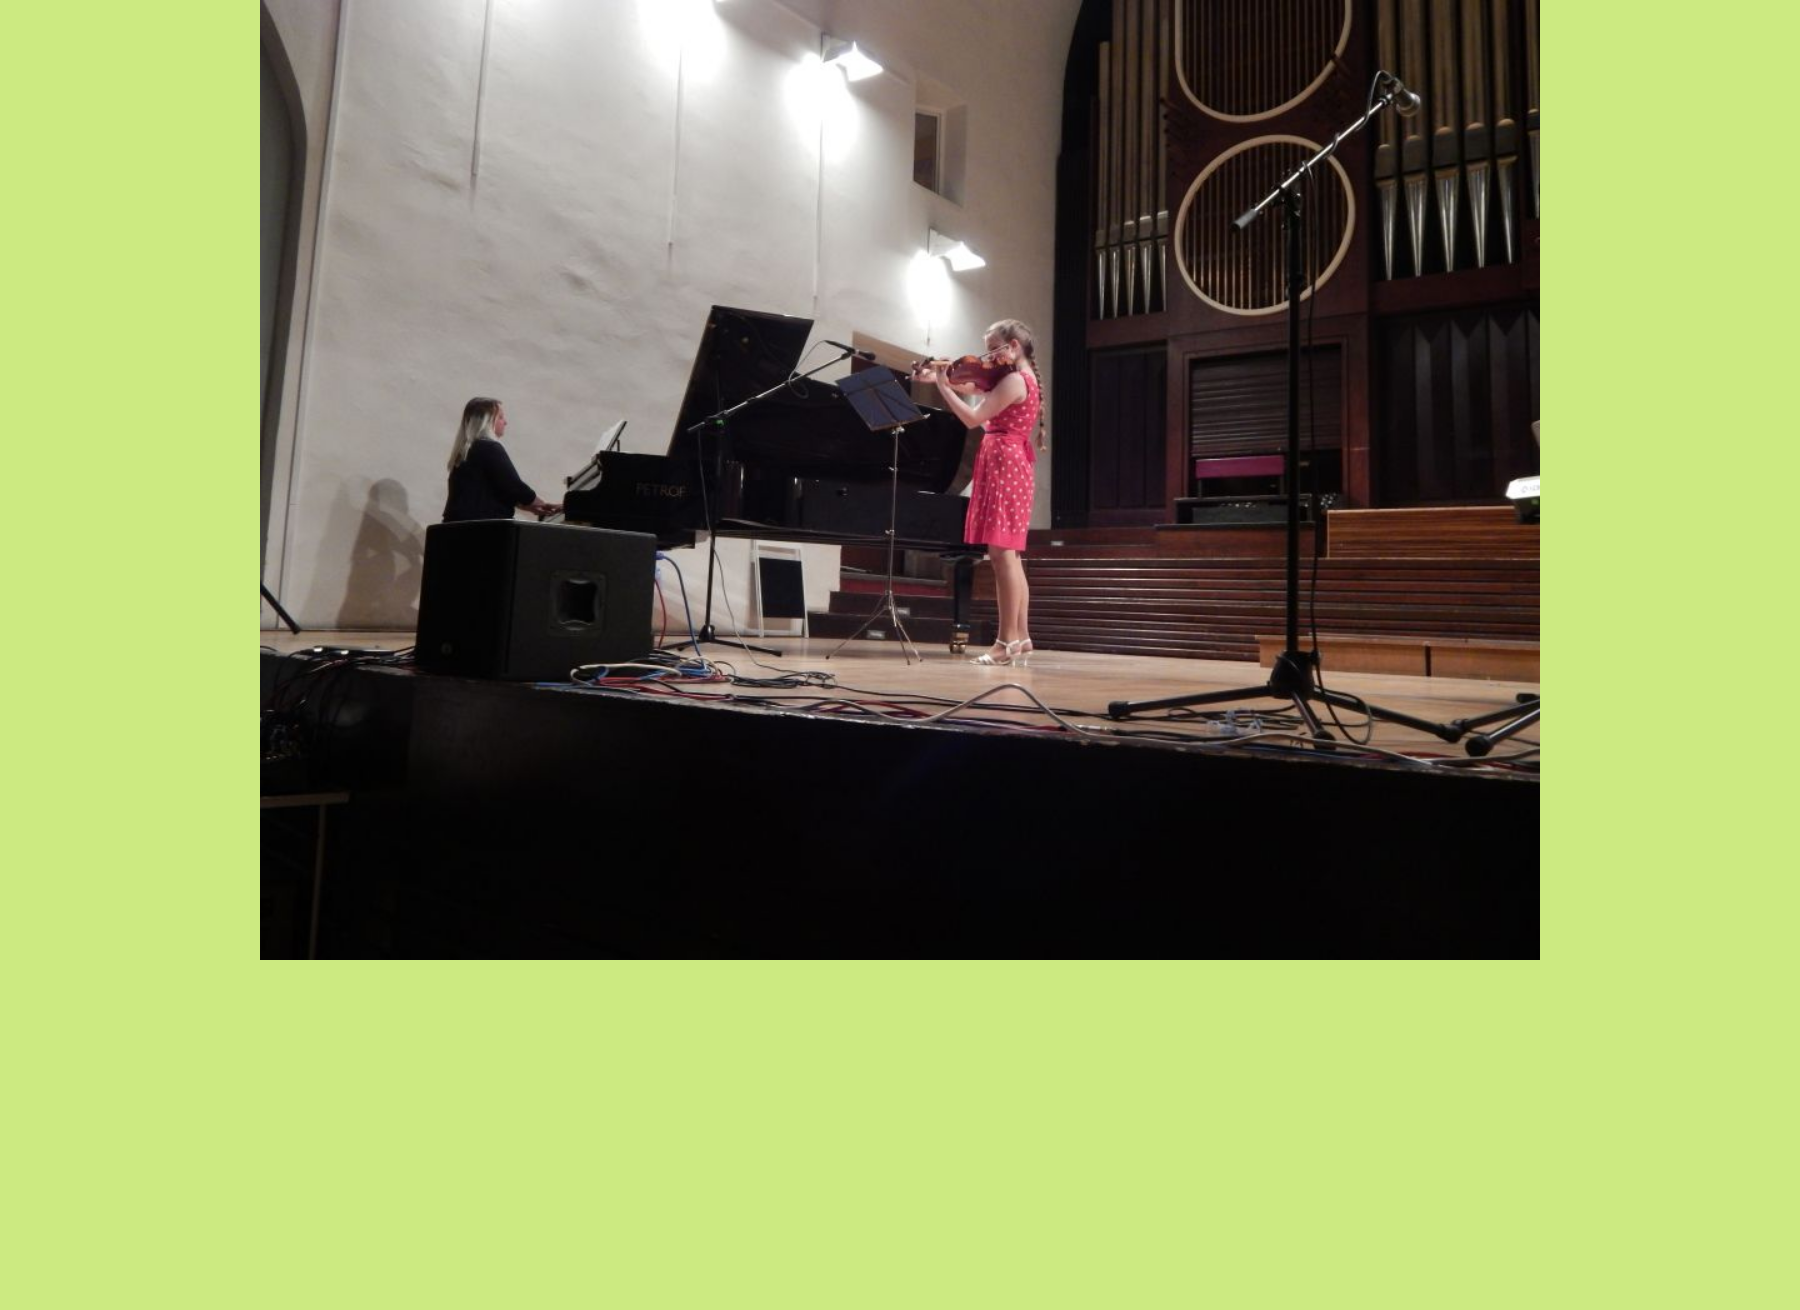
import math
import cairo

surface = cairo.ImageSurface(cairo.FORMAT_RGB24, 1800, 1310)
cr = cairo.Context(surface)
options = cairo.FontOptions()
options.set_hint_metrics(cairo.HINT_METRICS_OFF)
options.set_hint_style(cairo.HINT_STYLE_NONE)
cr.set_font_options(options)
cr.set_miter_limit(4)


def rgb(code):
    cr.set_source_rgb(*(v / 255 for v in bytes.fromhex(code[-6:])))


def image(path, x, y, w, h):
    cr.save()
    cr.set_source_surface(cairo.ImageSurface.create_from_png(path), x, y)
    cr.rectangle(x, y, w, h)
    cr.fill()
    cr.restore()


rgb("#ccea81")
cr.paint()
image("img/1.png", 260, 0, 1280, 960)
surface.write_to_png("page.png")
